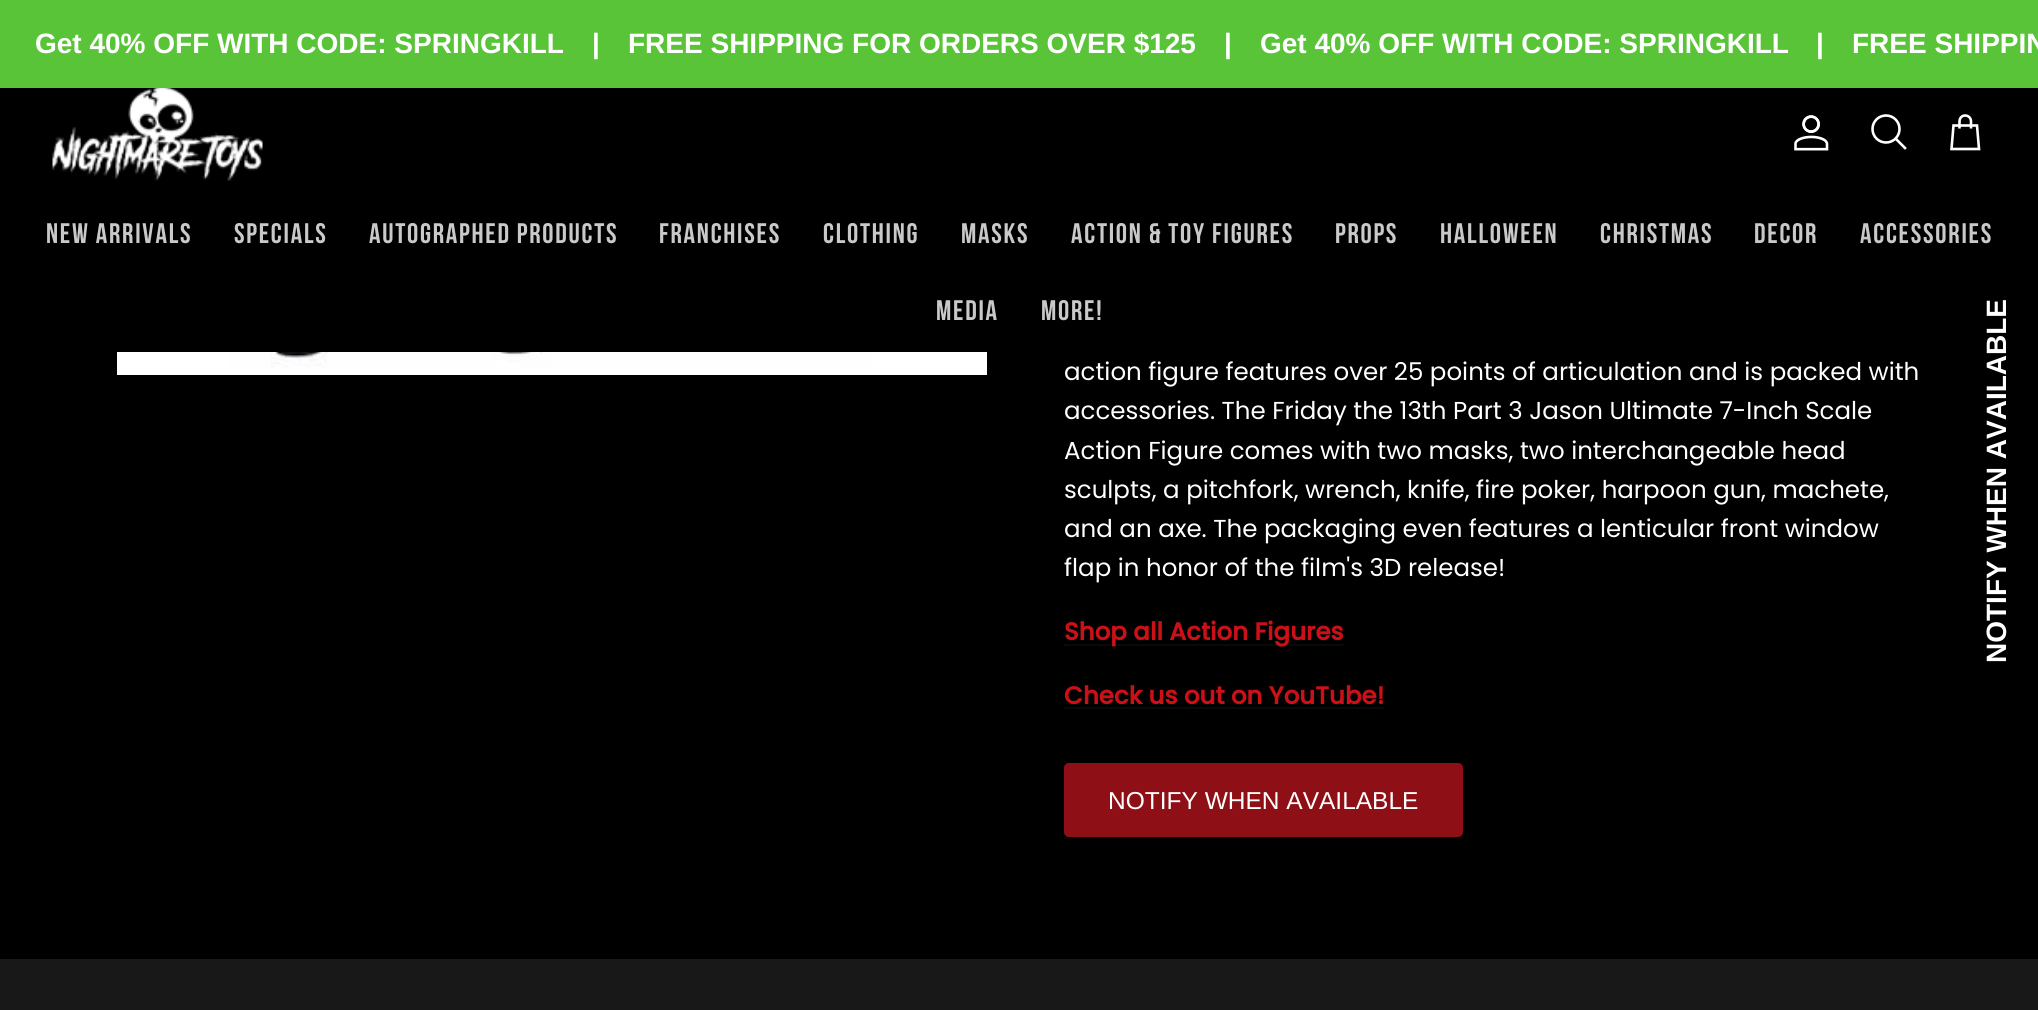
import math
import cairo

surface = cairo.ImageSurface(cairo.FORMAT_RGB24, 2038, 1010)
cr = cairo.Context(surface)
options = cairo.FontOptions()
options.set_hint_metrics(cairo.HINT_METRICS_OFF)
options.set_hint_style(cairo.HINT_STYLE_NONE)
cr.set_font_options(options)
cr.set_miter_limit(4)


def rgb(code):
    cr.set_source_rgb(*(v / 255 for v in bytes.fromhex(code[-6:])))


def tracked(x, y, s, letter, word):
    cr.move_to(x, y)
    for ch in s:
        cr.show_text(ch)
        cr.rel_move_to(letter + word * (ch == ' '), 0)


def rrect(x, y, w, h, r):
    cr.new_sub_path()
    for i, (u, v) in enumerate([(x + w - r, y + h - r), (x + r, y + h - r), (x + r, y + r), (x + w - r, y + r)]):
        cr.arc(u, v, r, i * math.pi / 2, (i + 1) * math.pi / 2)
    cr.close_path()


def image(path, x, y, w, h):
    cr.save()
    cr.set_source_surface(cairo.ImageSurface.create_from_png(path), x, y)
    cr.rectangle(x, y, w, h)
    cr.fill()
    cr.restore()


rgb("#000000")
cr.paint()
rgb("#5ac439")
cr.rectangle(0, 0, 2038, 88)
cr.fill()
image("img/1.png", 52, 88, 211, 93)
image("img/2.png", 1794, 115, 35, 36)
cr.arc(1886, 129, 13.5, 0, 2 * math.pi)
rgb("#ffffff")
cr.set_line_width(2.6)
cr.stroke()
cr.new_path()
cr.move_to(1897, 140)
cr.line_to(1905, 148)
cr.set_line_cap(cairo.LINE_CAP_SQUARE)
cr.stroke()
cr.new_path()
cr.move_to(1971, 128.5)
cr.line_to(1971, 121.5)
cr.curve_to(1971, 118, 1968.5, 115.5, 1965, 115.5)
cr.curve_to(1962, 115.5, 1959.5, 118, 1959.5, 121.5)
cr.line_to(1959.5, 128.5)
cr.move_to(1953.5, 125.5)
cr.line_to(1977, 125.5)
cr.line_to(1979, 149)
cr.line_to(1951.5, 149)
cr.close_path()
cr.set_line_cap(cairo.LINE_CAP_BUTT)
cr.stroke()
image("img/3.png", 117, 352, 870, 23)
rgb("#090909")
cr.rectangle(1064, 644, 280, 2)
cr.fill()
cr.rectangle(1064, 707, 320, 2)
cr.fill()
rgb("#8f0f16")
rrect(1064, 763, 399, 74, 5)
cr.fill()
rgb("#181818")
cr.rectangle(0, 959, 2038, 51)
cr.fill()
cr.select_font_face("Arimo", cairo.FONT_SLANT_NORMAL, cairo.FONT_WEIGHT_BOLD)
cr.set_font_size(28)
rgb("#ffffff")
for x, y, s in [
    (35, 53, "Get 40% OFF WITH CODE: SPRINGKILL"),
    (592, 53, "|"),
    (628, 53, "FREE SHIPPING FOR ORDERS OVER $125"),
    (1224, 53, "|"),
    (1260, 53, "Get 40% OFF WITH CODE: SPRINGKILL"),
    (1816, 53, "|"),
    (1852, 53, "FREE SHIPPIN"),
]:
    cr.move_to(x, y)
    cr.show_text(s)
cr.select_font_face("Bebas Neue")
cr.set_font_size(28.25)
rgb("#c9c9c9")
for x, y, s in [
    (46, 243, "New Arrivals"),
    (234, 243, "Specials"),
    (369, 243, "Autographed Products"),
    (659, 243, "Franchises"),
    (823, 243, "Clothing"),
    (961, 243, "Masks"),
    (1071, 243, "Action & Toy Figures"),
    (1335, 243, "Props"),
    (1440, 243, "Halloween"),
    (1600, 243, "Christmas"),
    (1754, 243, "Decor"),
    (1860, 243, "Accessories"),
    (936, 320, "Media"),
    (1041, 320, "More!"),
]:
    tracked(x, y, s, 1.75, 0)
cr.select_font_face("Poppins")
cr.set_font_size(24.5)
rgb("#ffffff")
for x, y, s in [
    (1064, 380, "action figure features over 25 points of articulation and is packed with"),
    (1064, 419, "accessories. The Friday the 13th Part 3 Jason Ultimate 7-Inch Scale"),
    (1064, 459, "Action Figure comes with two masks, two interchangeable head"),
    (1064, 498, "sculpts, a pitchfork, wrench, knife, fire poker, harpoon gun, machete,"),
    (1064, 537, "and an axe. The packaging even features a lenticular front window"),
    (1064, 576, "flap in honor of the film's 3D release!"),
]:
    cr.move_to(x, y)
    cr.show_text(s)
cr.select_font_face("Poppins", cairo.FONT_SLANT_NORMAL, cairo.FONT_WEIGHT_BOLD)
rgb("#cc1018")
cr.move_to(1064, 640)
cr.show_text("Shop all Action Figures")
cr.move_to(1064, 704)
cr.show_text("Check us out on YouTube!")
cr.select_font_face("Arimo")
rgb("#ffffff")
cr.move_to(1108, 809)
cr.show_text("NOTIFY WHEN AVAILABLE")
cr.select_font_face("Liberation Sans", cairo.FONT_SLANT_NORMAL, cairo.FONT_WEIGHT_BOLD)
cr.set_font_size(28)
cr.save()
cr.translate(2006, 663)
cr.rotate(-90 * math.pi / 180)
cr.move_to(0, 0)
cr.show_text("NOTIFY WHEN AVAILABLE")
cr.restore()
surface.write_to_png("page.png")
